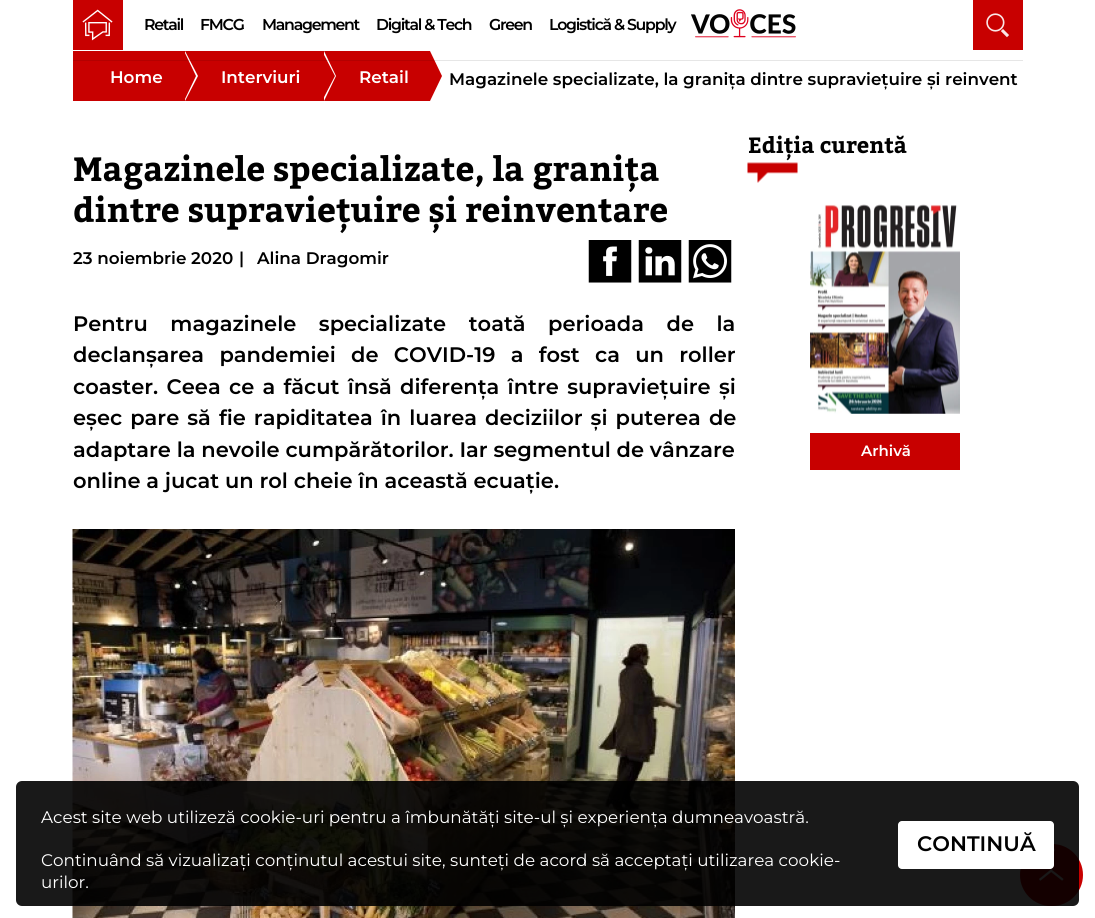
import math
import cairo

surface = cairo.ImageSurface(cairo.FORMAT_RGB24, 1095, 918)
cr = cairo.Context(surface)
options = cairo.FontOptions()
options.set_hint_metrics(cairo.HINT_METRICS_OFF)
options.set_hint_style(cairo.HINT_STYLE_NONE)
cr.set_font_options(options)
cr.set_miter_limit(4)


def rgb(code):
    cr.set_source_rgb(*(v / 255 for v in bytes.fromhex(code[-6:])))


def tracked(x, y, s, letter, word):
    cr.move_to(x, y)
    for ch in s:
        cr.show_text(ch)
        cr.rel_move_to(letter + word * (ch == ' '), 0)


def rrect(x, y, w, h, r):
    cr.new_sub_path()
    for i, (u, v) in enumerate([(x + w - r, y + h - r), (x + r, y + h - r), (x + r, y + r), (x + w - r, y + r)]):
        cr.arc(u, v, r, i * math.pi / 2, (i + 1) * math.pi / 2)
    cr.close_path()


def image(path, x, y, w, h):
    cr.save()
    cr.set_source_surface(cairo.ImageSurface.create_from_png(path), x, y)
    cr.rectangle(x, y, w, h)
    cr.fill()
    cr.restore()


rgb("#ffffff")
cr.paint()
rgb("#c80000")
cr.rectangle(73, 0, 50, 50)
cr.fill()
image("img/1.png", 82, 9, 31, 32)
image("img/2.png", 691, 9, 105, 29)
cr.rectangle(973, 0, 50, 50)
cr.fill()
image("img/3.png", 986, 13, 23, 25)
cr.rectangle(73, 51, 357, 50)
cr.fill()
rgb("#ffffff")
cr.new_path()
cr.move_to(185, 101)
cr.line_to(185, 51)
cr.line_to(198, 76)
cr.close_path()
cr.fill()
rgb("#c80000")
cr.new_path()
cr.move_to(184, 101)
cr.line_to(184, 51)
cr.line_to(196, 76)
cr.close_path()
cr.fill()
rgb("#ffffff")
cr.new_path()
cr.move_to(324, 101)
cr.line_to(324, 51)
cr.line_to(336, 76)
cr.close_path()
cr.fill()
rgb("#c80000")
cr.new_path()
cr.move_to(322, 101)
cr.line_to(322, 51)
cr.line_to(335, 76)
cr.close_path()
cr.fill()
cr.new_path()
cr.move_to(430, 101)
cr.line_to(430, 51)
cr.line_to(442, 76)
cr.close_path()
cr.fill()
cr.set_source_rgba(0, 0, 0, 0.1)
cr.rectangle(73, 60, 950, 1)
cr.fill()
image("img/4.png", 588, 240, 44, 43)
image("img/5.png", 638, 240, 44, 43)
image("img/6.png", 688, 240, 44, 43)
image("img/7.png", 72, 529, 663, 389)
image("img/8.png", 747, 162, 51, 21)
image("img/9.png", 810, 204, 150, 210)
rgb("#c80000")
cr.rectangle(810, 433, 150, 37)
cr.fill()
rrect(1020, 844, 63, 62, 31)
cr.fill()
cr.new_path()
cr.move_to(1051, 850)
cr.line_to(1054.5, 850)
rgb("#ffffff")
cr.set_line_width(2.6)
cr.stroke()
image("img/10.png", 1039, 869, 25, 12)
cr.set_source_rgba(0, 0, 0, 0.9)
rrect(16, 781, 1063, 125, 6)
cr.fill()
rgb("#ffffff")
rrect(898, 821, 156, 48, 4)
cr.fill()
cr.select_font_face("Montserrat SemiBold")
cr.set_font_size(15.75)
rgb("#000000")
for x, y, s in [
    (144, 30, "Retail"),
    (200, 30, "FMCG"),
    (262, 30, "Management"),
    (376, 30, "Digital & Tech"),
    (489, 30, "Green"),
    (549, 30, "Logistică & Supply"),
]:
    tracked(x, y, s, -1.25, 0)
cr.set_font_size(16.8)
rgb("#ffffff")
for x, y, s in [
    (110, 83, "Home"),
    (221, 83, "Interviuri"),
    (359, 83, "Retail"),
]:
    cr.move_to(x, y)
    cr.show_text(s)
rgb("#000000")
cr.move_to(449, 85)
cr.show_text("Magazinele specializate, la granița dintre supraviețuire și reinvent")
cr.select_font_face("Bitter", cairo.FONT_SLANT_NORMAL, cairo.FONT_WEIGHT_BOLD)
cr.set_font_size(33.6)
cr.move_to(73, 181)
cr.show_text("Magazinele specializate, la granița")
cr.move_to(73, 222)
cr.show_text("dintre supraviețuire și reinventare")
cr.select_font_face("Montserrat SemiBold")
cr.set_font_size(16.8)
for x, y, s in [
    (73, 264, "23 noiembrie 2020"),
    (239, 264, "|"),
    (257, 264, "Alina Dragomir"),
]:
    cr.move_to(x, y)
    cr.show_text(s)
cr.set_font_size(21)
tracked(73, 331, "Pentru magazinele specializate toată perioada de la", 0, 16.75)
tracked(73, 362, "declanșarea pandemiei de COVID-19 a fost ca un roller", 0, 9.5)
tracked(73, 394, "coaster. Ceea ce a făcut însă diferența între supraviețuire și", 0, 2.5)
tracked(73, 425, "eșec pare să fie rapiditatea în luarea deciziilor și puterea de", 0, 2.25)
cr.move_to(73, 457)
cr.show_text("adaptare la nevoile cumpărătorilor. Iar segmentul de vânzare")
cr.move_to(73, 488)
cr.show_text("online a jucat un rol cheie în această ecuație.")
cr.select_font_face("Bitter", cairo.FONT_SLANT_NORMAL, cairo.FONT_WEIGHT_BOLD)
cr.set_font_size(22)
cr.move_to(748, 153)
cr.show_text("Ediția curentă")
cr.select_font_face("Montserrat SemiBold")
cr.set_font_size(15)
rgb("#ffffff")
cr.move_to(861, 456)
cr.show_text("Arhivă")
cr.select_font_face("Montserrat")
cr.set_font_size(16.8)
for x, y, s in [
    (41, 823, "Acest site web utilizeză cookie-uri pentru a îmbunătăți site-ul și experiența dumneavoastră."),
    (41, 866, "Continuând să vizualizați conținutul acestui site, sunteți de acord să acceptați utilizarea cookie-"),
    (41, 888, "urilor."),
]:
    cr.move_to(x, y)
    cr.show_text(s)
cr.select_font_face("Montserrat SemiBold")
cr.set_font_size(21)
rgb("#000000")
cr.move_to(917, 851)
cr.show_text("CONTINUĂ")
surface.write_to_png("page.png")
